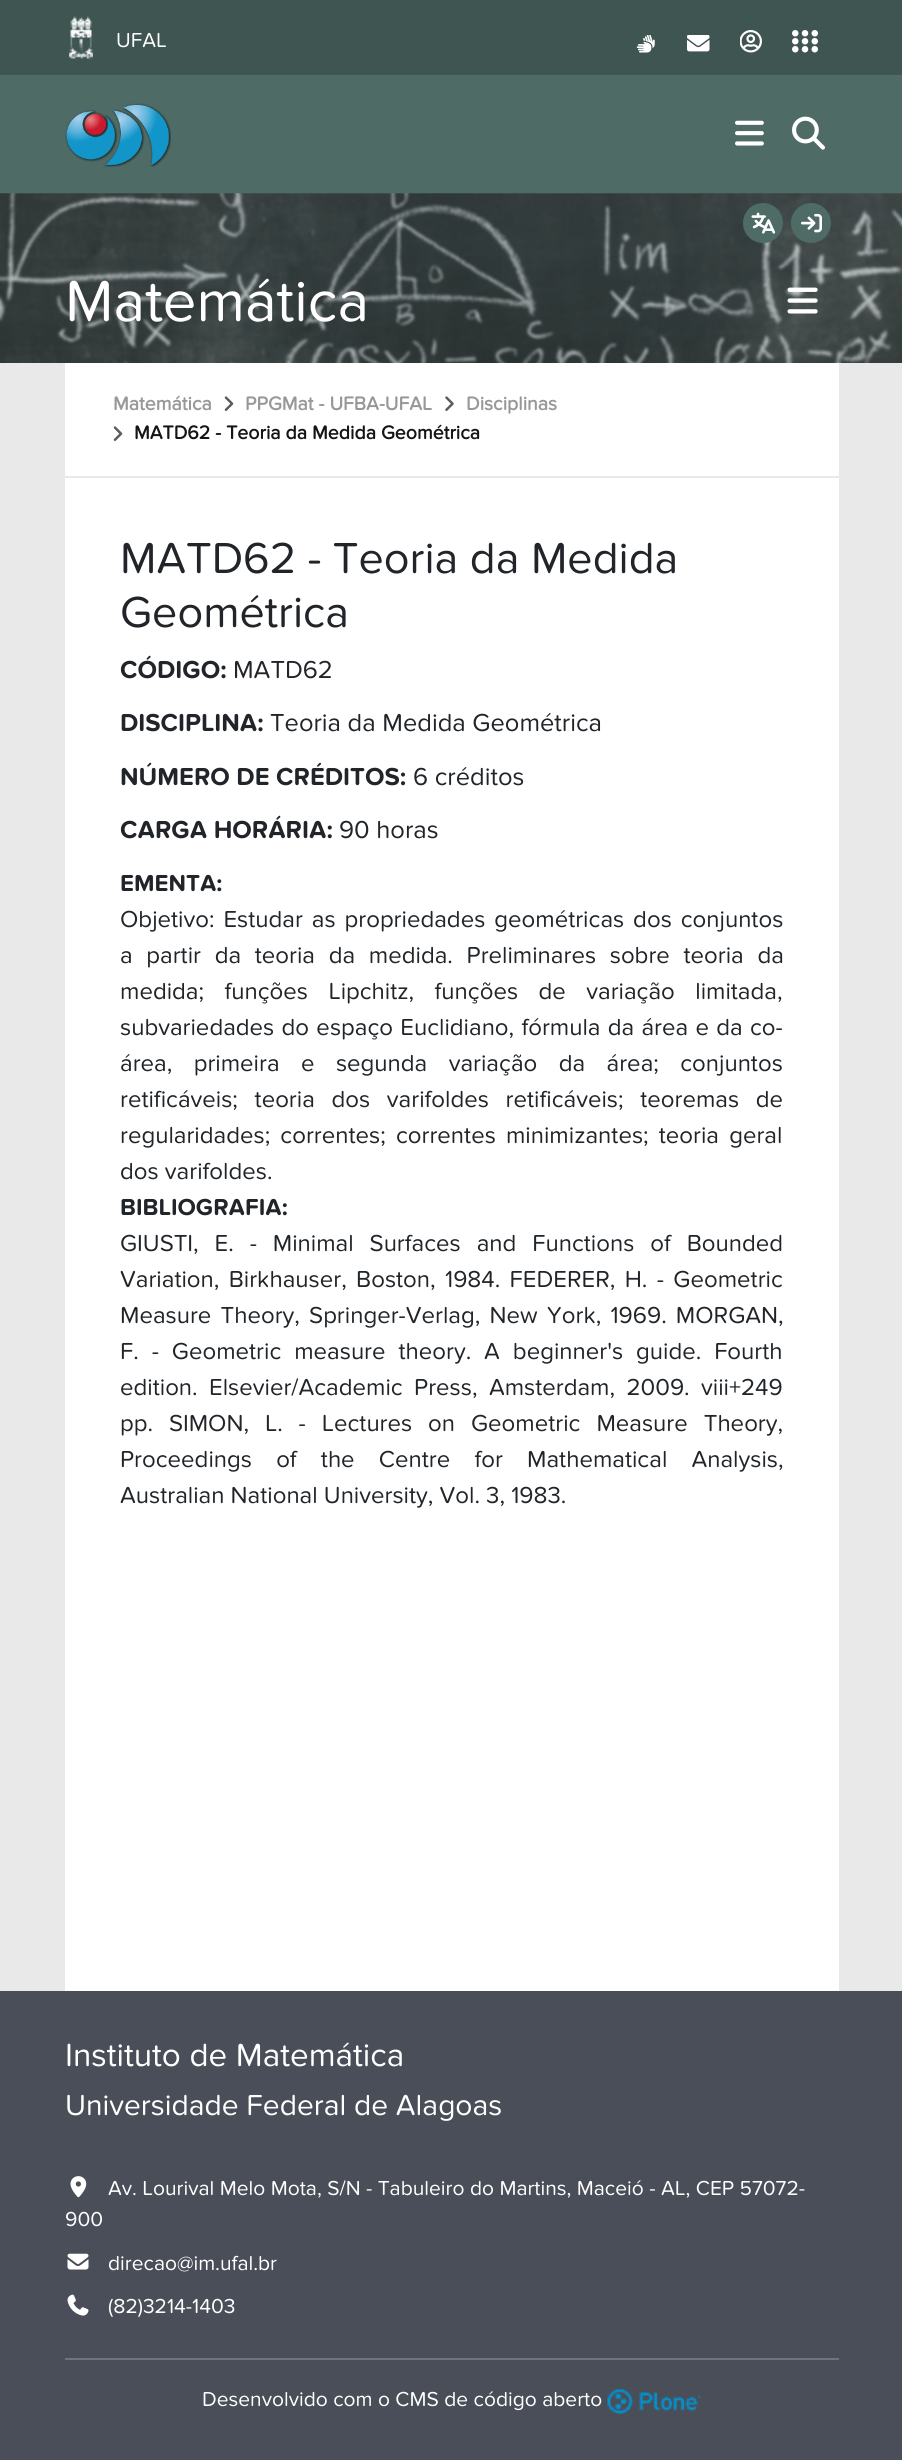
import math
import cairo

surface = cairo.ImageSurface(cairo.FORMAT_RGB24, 902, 2460)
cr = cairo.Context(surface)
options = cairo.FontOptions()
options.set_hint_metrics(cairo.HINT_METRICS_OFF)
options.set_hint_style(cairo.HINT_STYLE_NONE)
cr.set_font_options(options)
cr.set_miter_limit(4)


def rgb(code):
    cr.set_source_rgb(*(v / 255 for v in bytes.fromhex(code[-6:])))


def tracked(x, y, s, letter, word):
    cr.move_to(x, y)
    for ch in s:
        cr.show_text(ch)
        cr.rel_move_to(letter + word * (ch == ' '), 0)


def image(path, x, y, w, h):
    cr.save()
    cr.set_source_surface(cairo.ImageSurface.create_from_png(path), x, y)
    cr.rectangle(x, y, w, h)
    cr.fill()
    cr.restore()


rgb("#e9e9e9")
cr.paint()
rgb("#3e5551")
cr.rectangle(0, 0, 902, 75)
cr.fill()
image("img/1.png", 69, 16, 24, 43)
image("img/2.png", 636, 35, 19, 18)
image("img/3.png", 687, 35, 23, 17)
image("img/4.png", 740, 30, 22, 23)
image("img/5.png", 792, 30, 26, 23)
rgb("#4e6b66")
cr.rectangle(0, 75, 902, 119)
cr.fill()
image("img/6.png", 65, 103, 106, 64)
image("img/7.png", 735, 120, 29, 26)
image("img/8.png", 792, 116, 33, 34)
image("img/9.png", 0, 193, 902, 170)
cr.arc(763, 223, 20, 0, 2 * math.pi)
cr.fill()
image("img/10.png", 751, 212, 25, 22)
cr.arc(811, 223, 20, 0, 2 * math.pi)
cr.fill()
image("img/11.png", 801, 213, 21, 20)
image("img/12.png", 787, 287, 31, 27)
rgb("#ffffff")
cr.rectangle(65, 363, 774, 1628)
cr.fill()
rgb("#e9e9e9")
cr.rectangle(65, 476, 774, 2)
cr.fill()
image("img/13.png", 224, 396, 10, 15)
image("img/14.png", 445, 396, 9, 15)
image("img/13.png", 113, 426, 10, 15)
rgb("#4a4e58")
cr.rectangle(0, 1991, 902, 469)
cr.fill()
image("img/15.png", 70, 2176, 17, 22)
image("img/16.png", 67, 2253, 22, 17)
image("img/17.png", 67, 2294, 22, 22)
rgb("#6c757d")
cr.rectangle(65, 2358, 774, 2)
cr.fill()
image("img/18.png", 607, 2389, 94, 25)
cr.select_font_face("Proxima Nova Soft")
cr.set_font_size(21)
rgb("#ffffff")
cr.move_to(116, 47)
cr.show_text("UFAL")
cr.set_font_size(60)
cr.move_to(65, 321)
cr.show_text("Matemática")
cr.select_font_face("Proxima Nova Soft", cairo.FONT_SLANT_NORMAL, cairo.FONT_WEIGHT_BOLD)
cr.set_font_size(19.5)
rgb("#989898")
for x, y, s in [
    (113, 410, "Matemática"),
    (245, 410, "PPGMat - UFBA-UFAL"),
    (466, 410, "Disciplinas"),
]:
    cr.move_to(x, y)
    cr.show_text(s)
rgb("#151515")
cr.move_to(134, 439)
cr.show_text("MATD62 - Teoria da Medida Geométrica")
cr.select_font_face("Proxima Nova Soft")
cr.set_font_size(45)
rgb("#212529")
cr.move_to(120, 573)
cr.show_text("MATD62 - Teoria da Medida")
cr.move_to(120, 627)
cr.show_text("Geométrica")
cr.select_font_face("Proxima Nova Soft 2", cairo.FONT_SLANT_NORMAL, cairo.FONT_WEIGHT_BOLD)
cr.set_font_size(25.5)
cr.move_to(120, 678)
cr.show_text("CÓDIGO:")
cr.select_font_face("Proxima Nova Soft")
cr.move_to(233, 678)
cr.show_text("MATD62")
cr.select_font_face("Proxima Nova Soft 2", cairo.FONT_SLANT_NORMAL, cairo.FONT_WEIGHT_BOLD)
cr.move_to(120, 731)
cr.show_text("DISCIPLINA:")
cr.select_font_face("Proxima Nova Soft")
cr.move_to(270, 731)
cr.show_text("Teoria da Medida Geométrica")
cr.select_font_face("Proxima Nova Soft 2", cairo.FONT_SLANT_NORMAL, cairo.FONT_WEIGHT_BOLD)
cr.move_to(120, 785)
cr.show_text("NÚMERO DE CRÉDITOS:")
cr.select_font_face("Proxima Nova Soft")
cr.move_to(413, 785)
cr.show_text("6 créditos")
cr.select_font_face("Proxima Nova Soft 2", cairo.FONT_SLANT_NORMAL, cairo.FONT_WEIGHT_BOLD)
cr.move_to(120, 838)
cr.show_text("CARGA HORÁRIA:")
cr.select_font_face("Proxima Nova Soft")
cr.move_to(339, 838)
cr.show_text("90 horas")
cr.select_font_face("Proxima Nova Soft 2", cairo.FONT_SLANT_NORMAL, cairo.FONT_WEIGHT_BOLD)
cr.set_font_size(24)
cr.move_to(120, 891)
cr.show_text("EMENTA:")
cr.select_font_face("Proxima Nova Soft")
tracked(120, 927, "Objetivo: Estudar as propriedades geométricas dos conjuntos", 0, 2.75)
tracked(120, 963, "a partir da teoria da medida. Preliminares sobre teoria da", 0, 7.5)
tracked(120, 999, "medida; funções Lipchitz, funções de variação limitada,", 0, 14.25)
tracked(120, 1035, "subvariedades do espaço Euclidiano, fórmula da área e da co-", 0, 1.1)
tracked(120, 1071, "área, primeira e segunda variação da área; conjuntos", 0, 15.25)
tracked(120, 1107, "retificáveis; teoria dos varifoldes retificáveis; teoremas de", 0, 10.5)
tracked(120, 1143, "regularidades; correntes; correntes minimizantes; teoria geral", 0, 4)
cr.move_to(120, 1179)
cr.show_text("dos varifoldes.")
cr.select_font_face("Proxima Nova Soft 2", cairo.FONT_SLANT_NORMAL, cairo.FONT_WEIGHT_BOLD)
cr.move_to(120, 1215)
cr.show_text("BIBLIOGRAFIA:")
cr.select_font_face("Proxima Nova Soft")
tracked(120, 1251, "GIUSTI, E. - Minimal Surfaces and Functions of Bounded", 0, 9.75)
tracked(120, 1287, "Variation, Birkhauser, Boston, 1984. FEDERER, H. - Geometric", 0, 3.25)
tracked(120, 1323, "Measure Theory, Springer-Verlag, New York, 1969. MORGAN,", 0, 3)
tracked(120, 1359, "F. - Geometric measure theory. A beginner's guide. Fourth", 0, 6.75)
tracked(120, 1395, "edition. Elsevier/Academic Press, Amsterdam, 2009. viii+249", 0, 5.25)
tracked(120, 1431, "pp. SIMON, L. - Lectures on Geometric Measure Theory,", 0, 9.75)
tracked(120, 1467, "Proceedings of the Centre for Mathematical Analysis,", 0, 18)
cr.move_to(120, 1503)
cr.show_text("Australian National University, Vol. 3, 1983.")
cr.set_font_size(33.25)
rgb("#ffffff")
cr.move_to(65, 2066)
cr.show_text("Instituto de Matemática")
cr.set_font_size(30)
cr.move_to(65, 2115)
cr.show_text("Universidade Federal de Alagoas")
cr.set_font_size(21)
for x, y, s in [
    (108, 2195, "Av. Lourival Melo Mota, S/N - Tabuleiro do Martins, Maceió - AL, CEP 57072-"),
    (65, 2226, "900"),
    (108, 2270, "direcao@im.ufal.br"),
    (108, 2313, "(82)3214-1403"),
    (202, 2406, "Desenvolvido com o CMS de código aberto"),
]:
    cr.move_to(x, y)
    cr.show_text(s)
surface.write_to_png("page.png")
